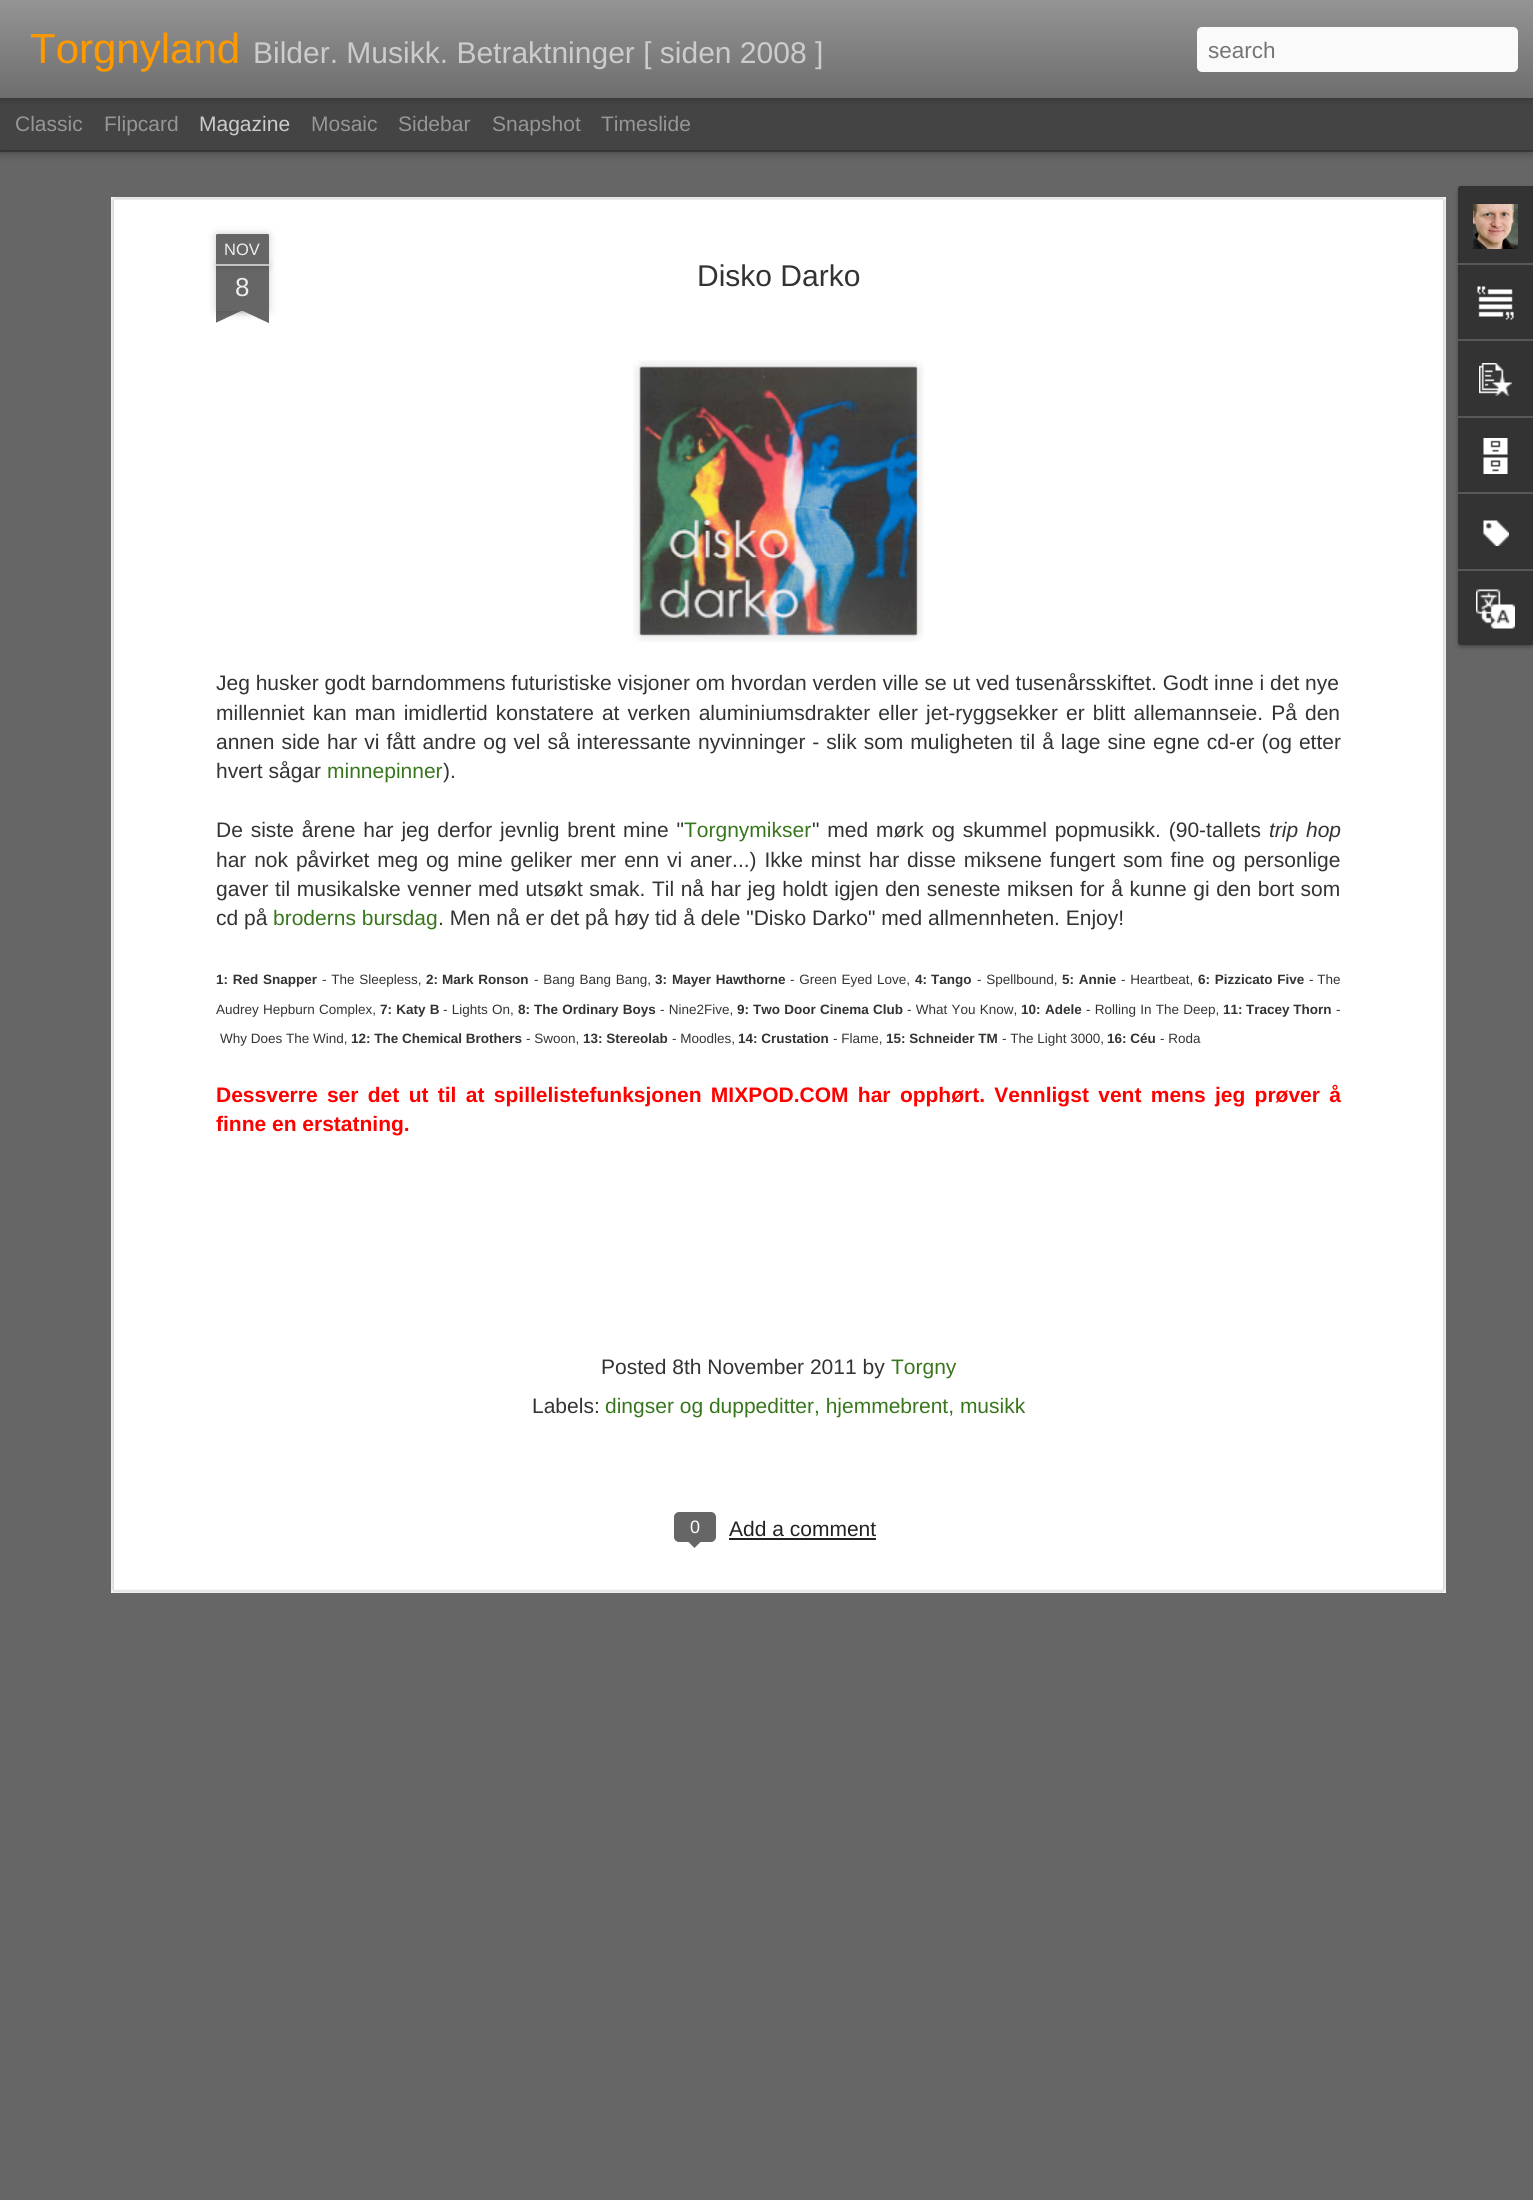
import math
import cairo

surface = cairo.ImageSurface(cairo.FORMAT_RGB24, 1533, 2200)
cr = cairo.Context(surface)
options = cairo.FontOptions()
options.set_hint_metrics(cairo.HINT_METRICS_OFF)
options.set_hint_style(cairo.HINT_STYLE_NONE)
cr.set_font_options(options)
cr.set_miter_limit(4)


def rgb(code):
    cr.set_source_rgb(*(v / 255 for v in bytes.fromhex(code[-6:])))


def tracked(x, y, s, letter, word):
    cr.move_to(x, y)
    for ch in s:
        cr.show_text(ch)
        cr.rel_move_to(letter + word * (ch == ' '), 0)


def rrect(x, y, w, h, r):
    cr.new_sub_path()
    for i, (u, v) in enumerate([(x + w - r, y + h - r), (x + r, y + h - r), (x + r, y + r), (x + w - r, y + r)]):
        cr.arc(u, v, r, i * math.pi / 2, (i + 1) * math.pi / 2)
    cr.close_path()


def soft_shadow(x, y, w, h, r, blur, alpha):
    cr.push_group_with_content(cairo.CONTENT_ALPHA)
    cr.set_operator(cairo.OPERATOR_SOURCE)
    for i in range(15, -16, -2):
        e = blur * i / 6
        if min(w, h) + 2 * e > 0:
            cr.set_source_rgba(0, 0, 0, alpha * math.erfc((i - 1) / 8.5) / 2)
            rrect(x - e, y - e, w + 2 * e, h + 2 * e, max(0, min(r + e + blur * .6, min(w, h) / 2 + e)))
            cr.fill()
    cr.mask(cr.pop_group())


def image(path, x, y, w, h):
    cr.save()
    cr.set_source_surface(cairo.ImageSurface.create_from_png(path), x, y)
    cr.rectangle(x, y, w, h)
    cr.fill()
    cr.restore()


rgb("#444444")
cr.paint()
rgb("#666666")
cr.rectangle(0, 152, 1533, 2048)
cr.fill()
rgb("#000000")
soft_shadow(0, 98, 1533, 52, 0, 6, 0.5)
rgb("#444444")
cr.rectangle(0, 98, 1533, 52)
cr.fill()
rgb("#000000")
soft_shadow(0, 0, 1533, 98, 0, 4, 0.3)
gradient = cairo.LinearGradient(0, 0, 0, 98)
gradient.add_color_stop_rgba(0, 0.58, 0.58, 0.58, 1)
gradient.add_color_stop_rgba(1, 0.431, 0.431, 0.431, 1)
cr.set_source(gradient)
cr.rectangle(0, 0, 1533, 98)
cr.fill()
rgb("#fafafa")
rrect(1197, 27, 321, 45, 5)
cr.fill()
rgb("#ffffff")
cr.rectangle(111, 197, 1335, 1396)
cr.fill()
image("img/1.png", 111, 197, 1335, 1396)
rgb("#000000")
soft_shadow(216, 266, 53, 45, 0, 4, 0.2)
rgb("#666666")
cr.rectangle(216, 266, 53, 45)
cr.fill()
rgb("#000000")
soft_shadow(216, 234, 53, 32, 1.5, 4, 0.2)
rgb("#666666")
cr.new_path()
cr.move_to(217.5, 234)
cr.line_to(267.5, 234)
cr.curve_to(268.5, 234, 269, 234.5, 269, 235.5)
cr.line_to(269, 266)
cr.line_to(216, 266)
cr.line_to(216, 235.5)
cr.curve_to(216, 234.5, 216.5, 234, 217.5, 234)
cr.close_path()
cr.fill()
rgb("#c2c2c2")
cr.rectangle(216, 264, 53, 2)
cr.fill()
cr.save()
cr.rectangle(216, 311, 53, 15)
cr.clip()
rgb("#000000")
soft_shadow(203, 296, 75, 15, 0, 4, 0.2)
cr.restore()
cr.save()
cr.rectangle(216, 311, 53, 15)
cr.clip()
rgb("#666666")
cr.new_path()
cr.move_to(203, 312)
cr.line_to(271, 280)
cr.line_to(277, 294)
cr.line_to(209, 326)
cr.close_path()
cr.fill()
cr.restore()
cr.save()
cr.rectangle(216, 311, 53, 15)
cr.clip()
rgb("#000000")
soft_shadow(207, 296, 75, 15, 0, 4, 0.2)
cr.restore()
cr.save()
cr.rectangle(216, 311, 53, 15)
cr.clip()
rgb("#666666")
cr.new_path()
cr.move_to(214, 280)
cr.line_to(282, 312)
cr.line_to(275, 326)
cr.line_to(207, 294)
cr.close_path()
cr.fill()
cr.restore()
image("img/2.png", 633, 360, 291, 282)
image("img/3.png", 639, 366, 279, 270)
rgb("#666666")
rrect(675, 1513, 40, 28, 4)
cr.fill_preserve()
cr.stroke()
cr.new_path()
cr.move_to(687, 1540.5)
cr.line_to(702, 1540.5)
cr.line_to(694.5, 1548)
cr.close_path()
cr.fill()
rgb("#222222")
cr.rectangle(729, 1538, 147, 2)
cr.fill()
rgb("#000000")
soft_shadow(1458, 188, 75, 459, 3, 2, 0.3)
rgb("#333333")
cr.new_path()
cr.move_to(1461, 186)
cr.line_to(1533, 186)
cr.line_to(1533, 645)
cr.line_to(1461, 645)
cr.curve_to(1459.5, 645, 1458, 643.5, 1458, 642)
cr.line_to(1458, 189)
cr.curve_to(1458, 187.5, 1459.5, 186, 1461, 186)
cr.close_path()
cr.fill()
cr.new_path()
cr.move_to(1461, 186)
cr.line_to(1533, 186)
cr.line_to(1533, 263)
cr.line_to(1458, 263)
cr.line_to(1458, 189)
cr.curve_to(1458, 187.5, 1459.5, 186, 1461, 186)
cr.close_path()
cr.fill()
image("img/4.png", 1473, 204, 45, 45)
rgb("#585858")
cr.rectangle(1458, 263, 75, 2)
cr.fill()
image("img/5.png", 1477, 286, 37, 34)
cr.rectangle(1458, 339, 75, 2)
cr.fill()
image("img/6.png", 1479, 363, 33, 33)
cr.rectangle(1458, 416, 75, 2)
cr.fill()
image("img/7.png", 1483, 438, 25, 36)
cr.rectangle(1458, 492, 75, 2)
cr.fill()
image("img/8.png", 1483, 520, 26, 26)
rgb("#333333")
cr.new_path()
cr.move_to(1458, 569)
cr.line_to(1533, 569)
cr.line_to(1533, 645)
cr.line_to(1461, 645)
cr.curve_to(1459.5, 645, 1458, 643.5, 1458, 642)
cr.close_path()
cr.fill()
rgb("#585858")
cr.rectangle(1458, 569, 75, 2)
cr.fill()
image("img/9.png", 1476, 589, 39, 40)
cr.select_font_face("Liberation Sans")
cr.set_font_size(42)
rgb("#ff9900")
cr.move_to(30, 63)
cr.show_text("Torgnyland")
cr.set_font_size(30)
rgb("#cccccc")
cr.move_to(253, 63)
cr.show_text("Bilder. Musikk. Betraktninger [ siden 2008 ]")
cr.set_font_size(22.5)
rgb("#757575")
cr.move_to(1208, 58)
cr.show_text("search")
cr.set_font_size(21)
rgb("#969696")
cr.move_to(15, 131)
cr.show_text("Classic")
cr.move_to(104, 131)
cr.show_text("Flipcard")
rgb("#cccccc")
cr.move_to(199, 131)
cr.show_text("Magazine")
rgb("#969696")
for x, y, s in [
    (311, 131, "Mosaic"),
    (398, 131, "Sidebar"),
    (492, 131, "Snapshot"),
    (601, 131, "Timeslide"),
]:
    cr.move_to(x, y)
    cr.show_text(s)
cr.set_font_size(16.5)
rgb("#eeeeee")
cr.move_to(224, 255)
cr.show_text("NOV")
cr.set_font_size(26)
cr.move_to(235, 296)
cr.show_text("8")
cr.set_font_size(30)
rgb("#333333")
cr.move_to(697, 286)
cr.show_text("Disko Darko")
cr.set_font_size(21)
cr.move_to(216, 690)
cr.show_text("Jeg husker godt barndommens futuristiske visjoner om hvordan verden ville se ut ved tusenårsskiftet. Godt inne i det nye")
tracked(216, 720, "millenniet kan man imidlertid konstatere at verken aluminiumsdrakter eller jet-ryggsekker er blitt allemannseie. På den", 0, 2.25)
tracked(216, 749, "annen side har vi fått andre og vel så interessante nyvinninger - slik som muligheten til å lage sine egne cd-er (og etter", 0, 1.15)
cr.move_to(216, 778)
cr.show_text("hvert sågar")
rgb("#38761d")
cr.move_to(327, 778)
cr.show_text("minnepinner")
rgb("#333333")
cr.move_to(443, 778)
cr.show_text(").")
tracked(216, 837, "De siste årene har jeg derfor jevnlig brent mine \"", 0, 2)
rgb("#38761d")
cr.move_to(684, 837)
cr.show_text("Torgnymikser")
rgb("#333333")
tracked(812, 837, "\" med mørk og skummel popmusikk. (90-tallets", 0, 2)
cr.select_font_face("Liberation Sans", cairo.FONT_SLANT_ITALIC)
tracked(1269, 837, "trip hop", 0, 2)
cr.select_font_face("Liberation Sans")
tracked(216, 867, "har nok påvirket meg og mine geliker mer enn vi aner...) Ikke minst har disse miksene fungert som fine og personlige", 0, 2)
tracked(216, 896, "gaver til musikalske venner med utsøkt smak. Til nå har jeg holdt igjen den seneste miksen for å kunne gi den bort som", 0, 0.75)
cr.move_to(216, 925)
cr.show_text("cd på")
rgb("#38761d")
cr.move_to(273, 925)
cr.show_text("broderns bursdag")
rgb("#333333")
cr.move_to(438, 925)
cr.show_text(". Men nå er det på høy tid å dele \"Disko Darko\" med allmennheten. Enjoy!")
cr.select_font_face("Liberation Sans", cairo.FONT_SLANT_NORMAL, cairo.FONT_WEIGHT_BOLD)
cr.set_font_size(13.5)
tracked(216, 984, "1: Red Snapper", 0, 1)
cr.select_font_face("Liberation Sans")
tracked(322, 984, "- The Sleepless,", 0, 1)
cr.select_font_face("Liberation Sans", cairo.FONT_SLANT_NORMAL, cairo.FONT_WEIGHT_BOLD)
cr.move_to(426, 984)
cr.show_text("2:")
tracked(442, 984, "Mark Ronson", 0, 1)
cr.select_font_face("Liberation Sans")
tracked(534, 984, "- Bang Bang Bang,", 0, 1)
cr.select_font_face("Liberation Sans", cairo.FONT_SLANT_NORMAL, cairo.FONT_WEIGHT_BOLD)
cr.move_to(655, 984)
cr.show_text("3:")
tracked(672, 984, "Mayer Hawthorne", 0, 1)
cr.select_font_face("Liberation Sans")
tracked(790, 984, "- Green Eyed Love,", 0, 1)
cr.select_font_face("Liberation Sans", cairo.FONT_SLANT_NORMAL, cairo.FONT_WEIGHT_BOLD)
cr.move_to(915, 984)
cr.show_text("4:")
cr.move_to(931, 984)
cr.show_text("Tango")
cr.select_font_face("Liberation Sans")
tracked(977, 984, "- Spellbound,", 0, 1)
cr.select_font_face("Liberation Sans", cairo.FONT_SLANT_NORMAL, cairo.FONT_WEIGHT_BOLD)
tracked(1062, 984, "5: Annie", 0, 1)
cr.select_font_face("Liberation Sans")
tracked(1121, 984, "- Heartbeat,", 0, 1)
cr.select_font_face("Liberation Sans", cairo.FONT_SLANT_NORMAL, cairo.FONT_WEIGHT_BOLD)
tracked(1198, 984, "6: Pizzicato Five", 0, 1)
cr.select_font_face("Liberation Sans")
cr.move_to(1309, 984)
cr.show_text("- The")
tracked(216, 1014, "Audrey Hepburn Complex,", 0, 0.5)
cr.select_font_face("Liberation Sans", cairo.FONT_SLANT_NORMAL, cairo.FONT_WEIGHT_BOLD)
tracked(380, 1014, "7: Katy B", 0, 0.5)
cr.select_font_face("Liberation Sans")
tracked(443, 1014, "- Lights On,", 0, 0.5)
cr.select_font_face("Liberation Sans", cairo.FONT_SLANT_NORMAL, cairo.FONT_WEIGHT_BOLD)
cr.move_to(518, 1014)
cr.show_text("8:")
tracked(534, 1014, "The Ordinary Boys", 0, 0.5)
cr.select_font_face("Liberation Sans")
tracked(660, 1014, "- Nine2Five,", 0, 0.5)
cr.select_font_face("Liberation Sans", cairo.FONT_SLANT_NORMAL, cairo.FONT_WEIGHT_BOLD)
cr.move_to(737, 1014)
cr.show_text("9:")
tracked(753, 1014, "Two Door Cinema Club", 0, 0.5)
cr.select_font_face("Liberation Sans")
tracked(907, 1014, "- What You Know,", 0, 0.5)
cr.select_font_face("Liberation Sans", cairo.FONT_SLANT_NORMAL, cairo.FONT_WEIGHT_BOLD)
cr.move_to(1021, 1014)
cr.show_text("10:")
cr.move_to(1045, 1014)
cr.show_text("Adele")
cr.select_font_face("Liberation Sans")
tracked(1086, 1014, "- Rolling In The Deep,", 0, 0.5)
cr.select_font_face("Liberation Sans", cairo.FONT_SLANT_NORMAL, cairo.FONT_WEIGHT_BOLD)
cr.move_to(1223, 1014)
cr.show_text("11:")
cr.move_to(1246, 1014)
cr.show_text("Tracey Thorn")
cr.select_font_face("Liberation Sans")
cr.move_to(1336, 1014)
cr.show_text("-")
cr.move_to(220, 1043)
cr.show_text("Why Does The Wind,")
cr.select_font_face("Liberation Sans", cairo.FONT_SLANT_NORMAL, cairo.FONT_WEIGHT_BOLD)
cr.move_to(351, 1043)
cr.show_text("12: The Chemical Brothers")
cr.select_font_face("Liberation Sans")
cr.move_to(526, 1043)
cr.show_text("- Swoon,")
cr.select_font_face("Liberation Sans", cairo.FONT_SLANT_NORMAL, cairo.FONT_WEIGHT_BOLD)
cr.move_to(583, 1043)
cr.show_text("13: Stereolab")
cr.select_font_face("Liberation Sans")
cr.move_to(672, 1043)
cr.show_text("- Moodles,")
cr.select_font_face("Liberation Sans", cairo.FONT_SLANT_NORMAL, cairo.FONT_WEIGHT_BOLD)
cr.move_to(738, 1043)
cr.show_text("14: Crustation")
cr.select_font_face("Liberation Sans")
cr.move_to(833, 1043)
cr.show_text("- Flame,")
cr.select_font_face("Liberation Sans", cairo.FONT_SLANT_NORMAL, cairo.FONT_WEIGHT_BOLD)
cr.move_to(886, 1043)
cr.show_text("15: Schneider TM")
cr.select_font_face("Liberation Sans")
cr.move_to(1002, 1043)
cr.show_text("- The Light 3000,")
cr.select_font_face("Liberation Sans", cairo.FONT_SLANT_NORMAL, cairo.FONT_WEIGHT_BOLD)
cr.move_to(1107, 1043)
cr.show_text("16: Céu")
cr.select_font_face("Liberation Sans")
cr.move_to(1160, 1043)
cr.show_text("- Roda")
cr.select_font_face("Liberation Sans", cairo.FONT_SLANT_NORMAL, cairo.FONT_WEIGHT_BOLD)
cr.set_font_size(21)
rgb("#ff0000")
tracked(216, 1102, "Dessverre ser det ut til at spillelistefunksjonen MIXPOD.COM har opphørt. Vennligst vent mens jeg prøver å", 0, 3.5)
cr.move_to(216, 1131)
cr.show_text("finne en erstatning.")
cr.select_font_face("Liberation Sans")
rgb("#333333")
cr.move_to(601, 1374)
cr.show_text("Posted 8th November 2011 by")
rgb("#38761d")
cr.move_to(891, 1374)
cr.show_text("Torgny")
rgb("#333333")
cr.move_to(532, 1413)
cr.show_text("Labels:")
rgb("#38761d")
cr.move_to(605, 1413)
cr.show_text("dingser og duppeditter, hjemmebrent, musikk")
cr.set_font_size(18)
rgb("#ffffff")
cr.move_to(690, 1533)
cr.show_text("0")
cr.set_font_size(21)
rgb("#222222")
cr.move_to(729, 1536)
cr.show_text("Add a comment")
surface.write_to_png("page.png")
